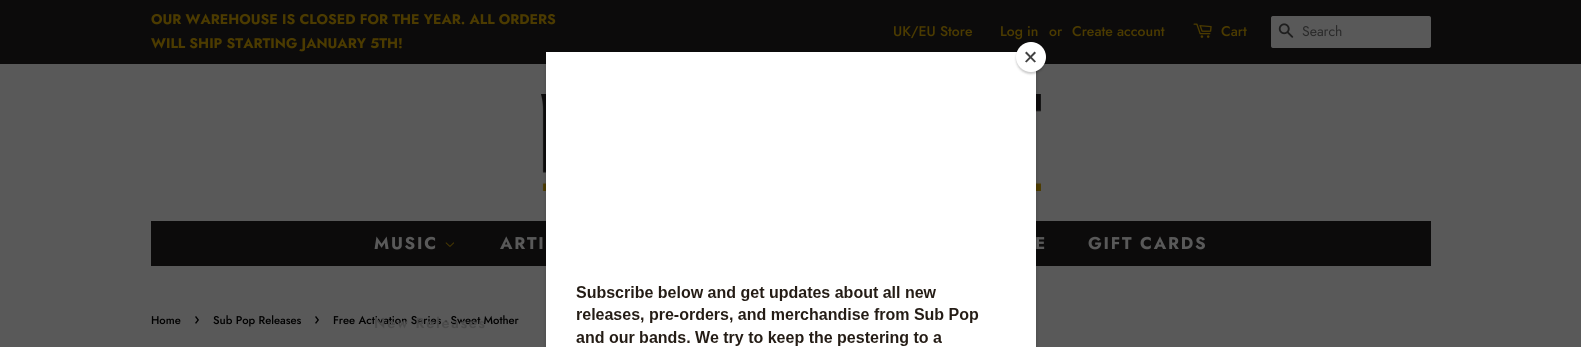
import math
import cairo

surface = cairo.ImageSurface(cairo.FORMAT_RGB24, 1581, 347)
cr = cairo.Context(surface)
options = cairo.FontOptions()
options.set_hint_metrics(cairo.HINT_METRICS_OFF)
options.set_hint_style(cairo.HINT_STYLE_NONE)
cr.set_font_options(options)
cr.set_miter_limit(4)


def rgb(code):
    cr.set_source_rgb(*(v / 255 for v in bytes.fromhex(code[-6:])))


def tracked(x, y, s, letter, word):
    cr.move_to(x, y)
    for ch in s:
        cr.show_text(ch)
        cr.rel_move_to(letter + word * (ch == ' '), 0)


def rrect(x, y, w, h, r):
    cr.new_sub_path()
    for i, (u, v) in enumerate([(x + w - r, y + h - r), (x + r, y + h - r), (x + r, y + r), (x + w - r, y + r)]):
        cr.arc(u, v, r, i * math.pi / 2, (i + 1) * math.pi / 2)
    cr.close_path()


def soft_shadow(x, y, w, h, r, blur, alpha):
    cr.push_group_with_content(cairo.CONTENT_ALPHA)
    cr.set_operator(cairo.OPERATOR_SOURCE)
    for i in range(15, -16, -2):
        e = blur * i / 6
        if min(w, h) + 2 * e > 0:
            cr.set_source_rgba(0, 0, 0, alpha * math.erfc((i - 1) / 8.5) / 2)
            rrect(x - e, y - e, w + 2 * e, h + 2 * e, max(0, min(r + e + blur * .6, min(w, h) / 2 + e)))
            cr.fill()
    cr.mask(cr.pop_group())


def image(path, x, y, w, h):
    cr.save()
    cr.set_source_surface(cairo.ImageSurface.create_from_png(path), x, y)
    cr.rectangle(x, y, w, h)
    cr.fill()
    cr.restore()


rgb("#595959")
cr.paint()
rgb("#0c0b0b")
cr.rectangle(0, 0, 1581, 64)
cr.fill()
image("img/1.png", 1193, 23, 19, 15)
rgb("#595959")
rrect(1271, 16, 160, 32, 2)
cr.fill()
image("img/2.png", 1278, 23, 16, 15)
image("img/3.png", 541, 94, 500, 97)
rgb("#0c0b0b")
cr.rectangle(151, 221, 1280, 45)
cr.fill()
image("img/4.png", 445, 242, 9, 5)
rgb("#000000")
soft_shadow(546, 54, 490, 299, 0, 2, 0.2)
cr.select_font_face("Jost", cairo.FONT_SLANT_NORMAL, cairo.FONT_WEIGHT_BOLD)
cr.set_font_size(14)
rgb("#4c3b00")
cr.move_to(151, 24)
cr.show_text("OUR WAREHOUSE IS CLOSED FOR THE YEAR. ALL ORDERS")
cr.move_to(151, 48)
cr.show_text("WILL SHIP STARTING JANUARY 5TH!")
cr.select_font_face("Jost Medium")
for x, y, s in [
    (893, 36, "UK/EU Store"),
    (1000, 36, "Log in"),
    (1049, 36, "or"),
    (1072, 36, "Create account"),
    (1221, 36, "Cart"),
]:
    cr.move_to(x, y)
    cr.show_text(s)
cr.select_font_face("Jost")
rgb("#292929")
cr.move_to(1302, 36)
cr.show_text("Search")
cr.select_font_face("Jost", cairo.FONT_SLANT_NORMAL, cairo.FONT_WEIGHT_BOLD)
cr.set_font_size(17)
rgb("#595959")
for x, y, s in [
    (374, 249, "MUSIC"),
    (500, 249, "ARTI"),
    (1035, 249, "E"),
    (1088, 249, "GIFT CARDS"),
]:
    tracked(x, y, s, 1.75, 0)
cr.select_font_face("Jost Medium")
cr.set_font_size(11.25)
rgb("#000000")
cr.move_to(151, 324)
cr.show_text("Home")
cr.set_font_size(16)
cr.move_to(194, 324)
cr.show_text("›")
cr.set_font_size(11.25)
cr.move_to(213, 324)
cr.show_text("Sub Pop Releases")
cr.set_font_size(16)
cr.move_to(314, 324)
cr.show_text("›")
cr.set_font_size(11.25)
cr.move_to(333, 324)
cr.show_text("Free Activation Series - Sweet Mother")
cr.select_font_face("Jost SemiBold")
cr.set_font_size(14.5)
rgb("#4b4b4b")
tracked(374, 328, "New Releases", 1.75, 0)
image("img/5.png", 546, 52, 490, 295)
rgb("#000000")
soft_shadow(1016, 44, 30, 30, 15, 1, 0.2)
rgb("#ffffff")
cr.arc(1031, 57, 15, 0, 2 * math.pi)
cr.fill()
rgb("#414141")
cr.new_path()
cr.move_to(1034.5, 51.5)
cr.line_to(1036, 53)
cr.line_to(1026.5, 62.5)
cr.line_to(1025, 61.5)
cr.close_path()
cr.fill()
cr.new_path()
cr.move_to(1025, 53)
cr.line_to(1026.5, 51.5)
cr.line_to(1036, 61.5)
cr.line_to(1034.5, 62.5)
cr.close_path()
cr.fill()
surface.write_to_png("page.png")
